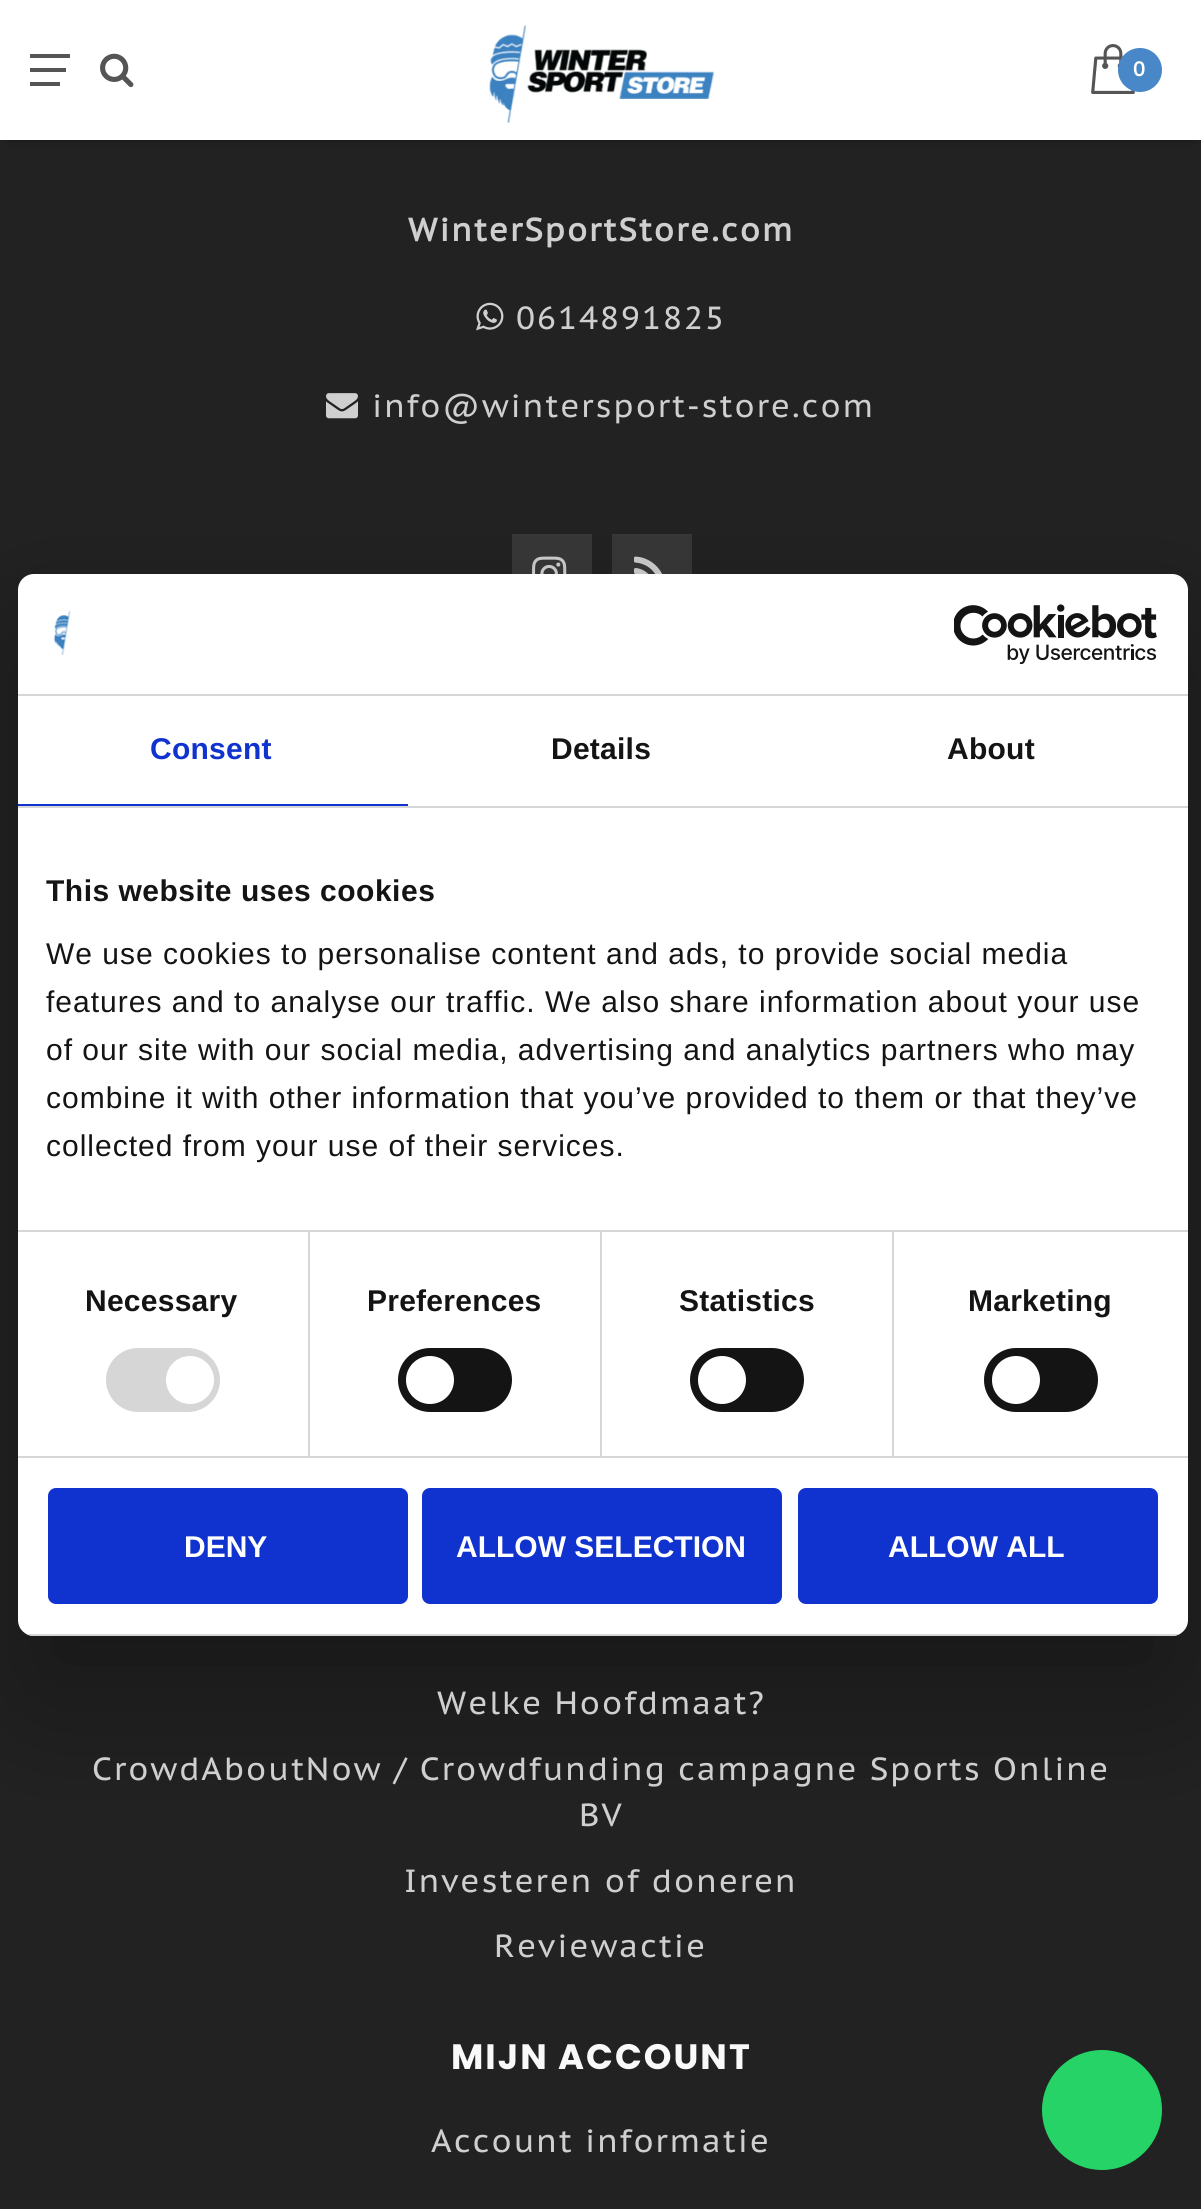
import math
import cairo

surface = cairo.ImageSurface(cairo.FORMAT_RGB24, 1201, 2209)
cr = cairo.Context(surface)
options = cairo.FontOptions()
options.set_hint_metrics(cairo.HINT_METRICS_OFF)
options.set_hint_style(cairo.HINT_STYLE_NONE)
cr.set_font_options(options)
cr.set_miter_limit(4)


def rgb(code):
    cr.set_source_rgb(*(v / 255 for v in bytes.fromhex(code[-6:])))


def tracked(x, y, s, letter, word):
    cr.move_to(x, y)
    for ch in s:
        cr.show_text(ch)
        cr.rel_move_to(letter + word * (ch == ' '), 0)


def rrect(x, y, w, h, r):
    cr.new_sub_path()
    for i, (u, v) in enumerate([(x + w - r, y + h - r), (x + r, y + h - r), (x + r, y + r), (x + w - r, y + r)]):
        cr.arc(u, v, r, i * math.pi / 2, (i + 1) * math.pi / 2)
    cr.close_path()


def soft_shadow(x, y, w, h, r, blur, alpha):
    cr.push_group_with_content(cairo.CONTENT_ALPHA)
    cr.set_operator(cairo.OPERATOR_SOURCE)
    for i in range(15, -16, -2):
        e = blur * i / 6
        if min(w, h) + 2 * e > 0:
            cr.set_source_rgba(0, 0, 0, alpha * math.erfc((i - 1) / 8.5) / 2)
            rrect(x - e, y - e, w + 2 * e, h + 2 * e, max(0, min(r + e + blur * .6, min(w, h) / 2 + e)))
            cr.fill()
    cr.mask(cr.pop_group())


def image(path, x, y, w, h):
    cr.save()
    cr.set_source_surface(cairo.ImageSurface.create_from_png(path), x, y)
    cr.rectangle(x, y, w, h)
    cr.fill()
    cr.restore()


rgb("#222222")
cr.paint()
rgb("#000000")
soft_shadow(8, 12, 1186, 124, 0, 5, 1)
for x, y, w, h, color in [
    (0, 0, 1201, 140, "#ffffff"),
    (30, 54, 40, 4, "#555555"),
    (30, 68, 36, 4, "#555555"),
    (30, 82, 30, 4, "#555555"),
]:
    rgb(color)
    cr.rectangle(x, y, w, h)
    cr.fill()
image("img/1.png", 100, 53, 34, 35)
image("img/2.png", 489, 25, 226, 99)
image("img/3.png", 1091, 44, 44, 50)
rgb("#4888c8")
cr.arc(1140, 70, 22, 0, 2 * math.pi)
cr.fill()
image("img/4.png", 476, 302, 28, 29)
image("img/5.png", 326, 393, 32, 26)
rgb("#383838")
cr.rectangle(512, 534, 80, 40)
cr.fill()
image("img/6.png", 532, 556, 35, 18)
cr.rectangle(612, 534, 80, 40)
cr.fill()
image("img/7.png", 634, 556, 28, 18)
rgb("#000000")
soft_shadow(18, 638, 1170, 1062, 16, 68, 0.3)
rgb("#ffffff")
rrect(18, 574, 1170, 1062, 16)
cr.fill()
rgb("#d6d6d6")
cr.rectangle(18, 694, 1170, 2)
cr.fill()
image("img/8.png", 53, 610, 18, 46)
image("img/9.png", 954, 604, 203, 60)
for x, y, w, h, color in [
    (18, 806, 1170, 2, "#d6d6d6"),
    (18, 804, 390, 2, "#1032cf"),
    (18, 1230, 1170, 2, "#d6d6d6"),
    (18, 1456, 1170, 2, "#d6d6d6"),
    (308, 1232, 2, 224, "#d6d6d6"),
]:
    rgb(color)
    cr.rectangle(x, y, w, h)
    cr.fill()
rrect(106, 1348, 114, 64, 32)
cr.fill()
rgb("#ffffff")
cr.arc(190, 1380, 24, 0, 2 * math.pi)
cr.fill()
rgb("#d6d6d6")
cr.rectangle(600, 1232, 2, 224)
cr.fill()
rgb("#141414")
rrect(398, 1348, 114, 64, 32)
cr.fill()
rgb("#ffffff")
cr.arc(430, 1380, 24, 0, 2 * math.pi)
cr.fill()
rgb("#d6d6d6")
cr.rectangle(892, 1232, 2, 224)
cr.fill()
rgb("#141414")
rrect(690, 1348, 114, 64, 32)
cr.fill()
rgb("#ffffff")
cr.arc(722, 1380, 24, 0, 2 * math.pi)
cr.fill()
rgb("#141414")
rrect(984, 1348, 114, 64, 32)
cr.fill()
rgb("#ffffff")
cr.arc(1016, 1380, 24, 0, 2 * math.pi)
cr.fill()
cr.save()
rrect(18, 574, 1170, 1062, 16)
cr.clip()
rgb("#d6d6d6")
cr.rectangle(18, 1634, 1170, 2)
cr.fill()
cr.restore()
rgb("#1032cf")
rrect(50, 1490, 356, 112, 6)
cr.fill_preserve()
cr.set_line_width(4)
cr.stroke()
rrect(424, 1490, 356, 112, 6)
cr.fill_preserve()
cr.stroke()
rrect(800, 1490, 356, 112, 6)
cr.fill_preserve()
cr.stroke()
rgb("#25d366")
cr.arc(1102, 2110, 60, 0, 2 * math.pi)
cr.fill()
cr.select_font_face("PT Sans Caption", cairo.FONT_SLANT_NORMAL, cairo.FONT_WEIGHT_BOLD)
cr.set_font_size(20)
rgb("#ffffff")
tracked(1133, 76, "0", 2, 0)
cr.set_font_size(32)
rgb("#cfcfcf")
tracked(408, 241, "WinterSportStore.com", 2, 0)
cr.select_font_face("PT Sans Caption")
for x, y, s in [
    (516, 329, "0614891825"),
    (372, 417, "info@wintersport-store.com"),
    (437, 1714, "Welke Hoofdmaat?"),
    (92, 1780, "CrowdAboutNow / Crowdfunding campagne Sports Online"),
    (579, 1826, "BV"),
    (404, 1892, "Investeren of doneren"),
    (494, 1957, "Reviewactie"),
]:
    tracked(x, y, s, 2, 0)
cr.select_font_face("Poppins", cairo.FONT_SLANT_NORMAL, cairo.FONT_WEIGHT_BOLD)
cr.set_font_size(35.25)
rgb("#f9f9f9")
tracked(451, 2069, "MIJN ACCOUNT", 2, 0)
cr.select_font_face("PT Sans Caption")
cr.set_font_size(32)
rgb("#cfcfcf")
tracked(431, 2152, "Account informatie", 2, 0)
cr.select_font_face("Liberation Sans", cairo.FONT_SLANT_NORMAL, cairo.FONT_WEIGHT_BOLD)
cr.set_font_size(30)
rgb("#1032cf")
tracked(150, 759, "Consent", 0.25, 0)
rgb("#141414")
tracked(551, 759, "Details", 0.25, 0)
tracked(947, 759, "About", 0.25, 0)
tracked(46, 901, "This website uses cookies", 0.5, 0)
cr.select_font_face("Liberation Sans")
for x, y, s in [
    (46, 964, "We use cookies to personalise content and ads, to provide social media"),
    (46, 1012, "features and to analyse our traffic. We also share information about your use"),
    (46, 1060, "of our site with our social media, advertising and analytics partners who may"),
    (46, 1108, "combine it with other information that you’ve provided to them or that they’ve"),
    (46, 1156, "collected from your use of their services."),
]:
    tracked(x, y, s, 1, 0)
cr.select_font_face("Liberation Sans", cairo.FONT_SLANT_NORMAL, cairo.FONT_WEIGHT_BOLD)
for x, y, s in [
    (85, 1311, "Necessary"),
    (367, 1311, "Preferences"),
    (679, 1311, "Statistics"),
    (968, 1311, "Marketing"),
]:
    tracked(x, y, s, 0.25, 0)
rgb("#ffffff")
for x, y, s in [
    (184, 1557, "DENY"),
    (456, 1557, "ALLOW SELECTION"),
    (888, 1557, "ALLOW ALL"),
]:
    cr.move_to(x, y)
    cr.show_text(s)
surface.write_to_png("page.png")
